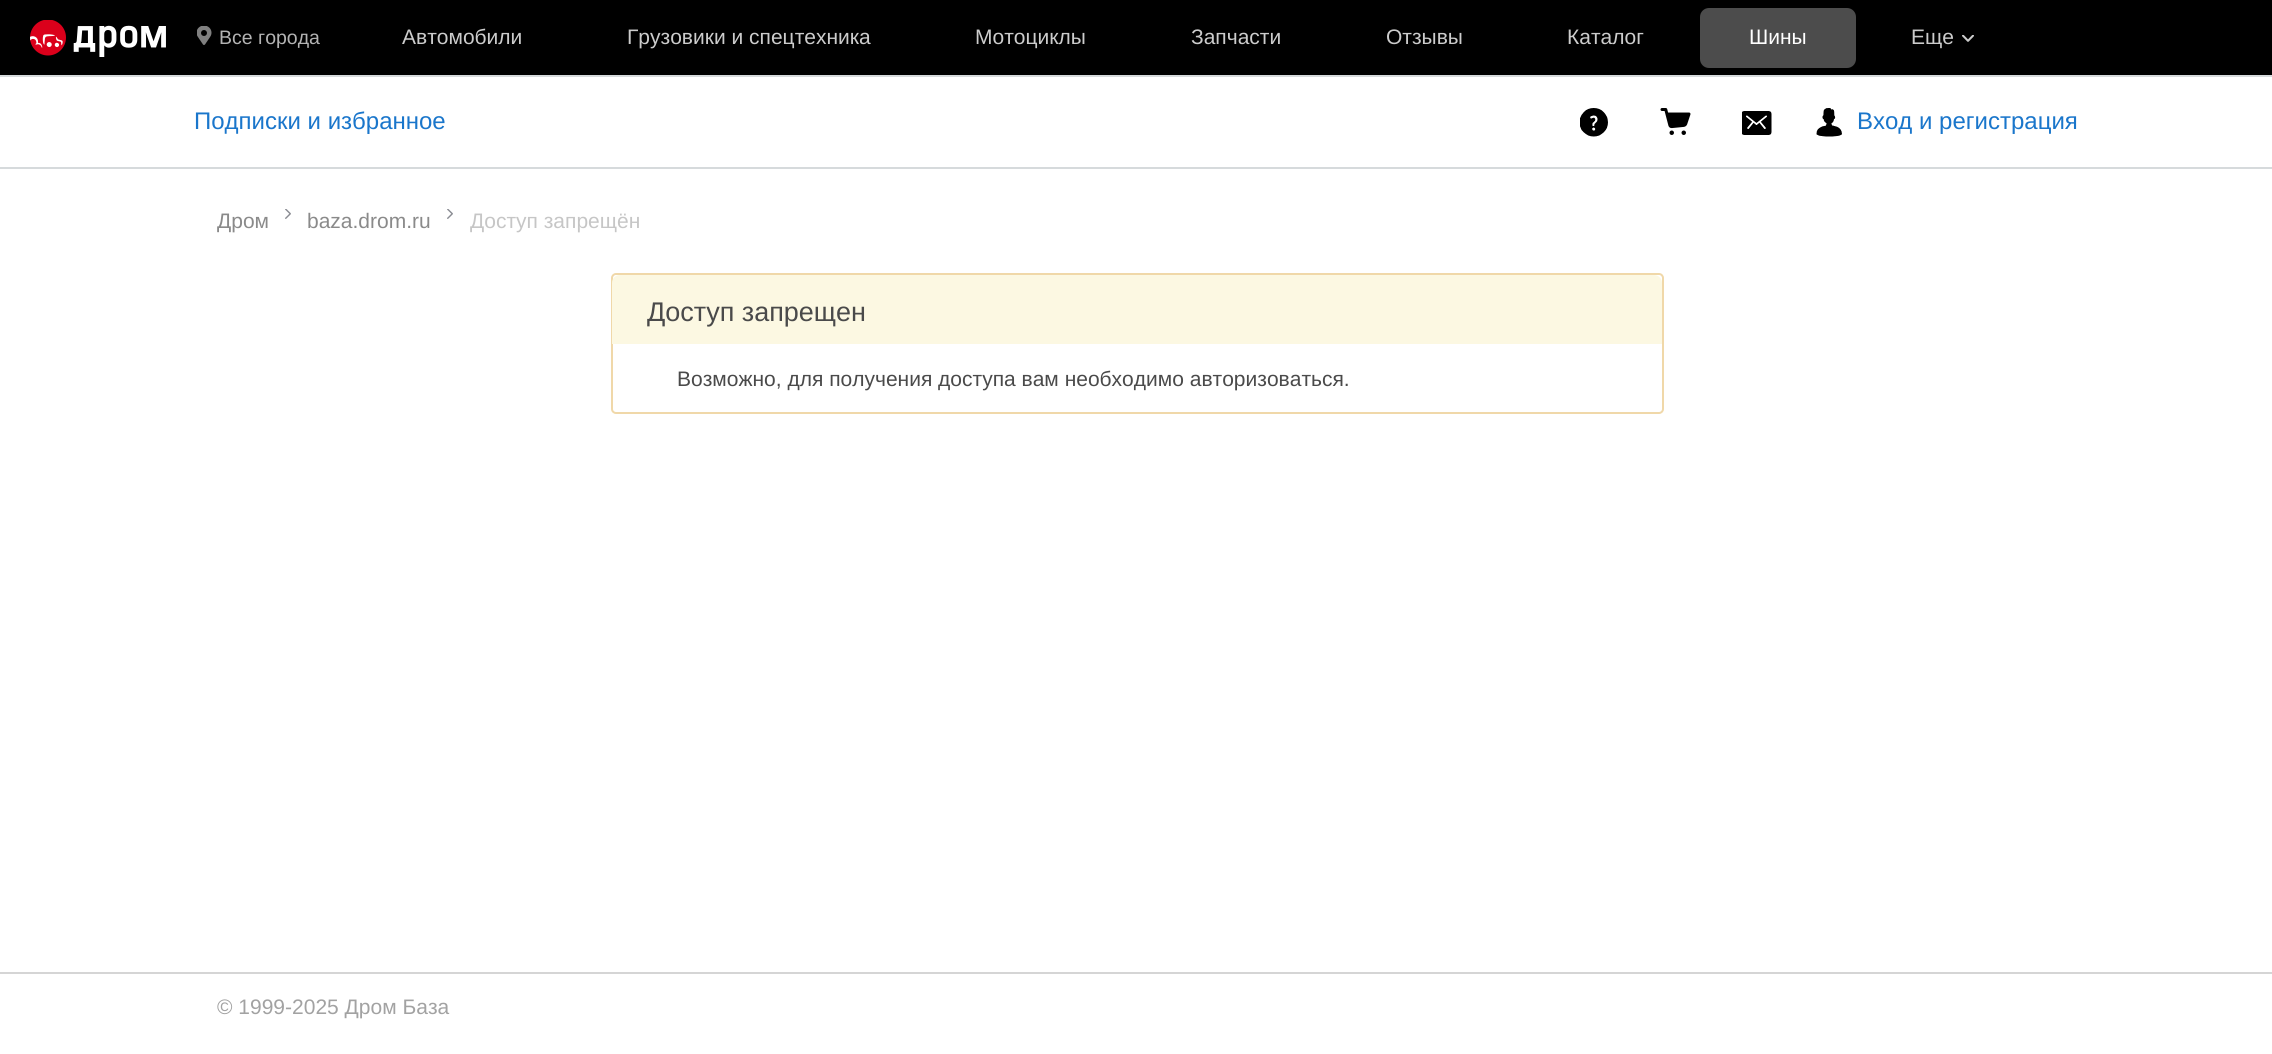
import math
import cairo

surface = cairo.ImageSurface(cairo.FORMAT_RGB24, 2272, 1054)
cr = cairo.Context(surface)
options = cairo.FontOptions()
options.set_hint_metrics(cairo.HINT_METRICS_OFF)
options.set_hint_style(cairo.HINT_STYLE_NONE)
cr.set_font_options(options)
cr.set_miter_limit(4)


def rgb(code):
    cr.set_source_rgb(*(v / 255 for v in bytes.fromhex(code[-6:])))


def rrect(x, y, w, h, r):
    cr.new_sub_path()
    for i, (u, v) in enumerate([(x + w - r, y + h - r), (x + r, y + h - r), (x + r, y + r), (x + w - r, y + r)]):
        cr.arc(u, v, r, i * math.pi / 2, (i + 1) * math.pi / 2)
    cr.close_path()


def image(path, x, y, w, h):
    cr.save()
    cr.set_source_surface(cairo.ImageSurface.create_from_png(path), x, y)
    cr.rectangle(x, y, w, h)
    cr.fill()
    cr.restore()


rgb("#ffffff")
cr.paint()
rgb("#000000")
cr.rectangle(0, 0, 2272, 75)
cr.fill()
image("img/1.png", 30, 20, 136, 37)
image("img/2.png", 197, 26, 15, 19)
image("img/3.png", 1962, 35, 12, 7)
rgb("#d6dadc")
cr.rectangle(0, 75, 2272, 2)
cr.fill()
cr.rectangle(0, 167, 2272, 2)
cr.fill()
image("img/4.png", 1580, 108, 28, 29)
image("img/5.png", 1660, 108, 31, 27)
image("img/6.png", 1742, 111, 30, 24)
image("img/7.png", 1816, 108, 26, 29)
image("img/8.png", 285, 209, 6, 10)
image("img/8.png", 447, 209, 6, 10)
rrect(612, 274, 1051, 139, 4)
rgb("#f0d8a9")
cr.stroke()
rgb("#fcf8e2")
cr.new_path()
cr.move_to(620, 275)
cr.line_to(1654, 275)
cr.curve_to(1658.5, 275, 1662, 278.5, 1662, 283)
cr.line_to(1662, 344)
cr.line_to(612, 344)
cr.line_to(612, 283)
cr.curve_to(612, 278.5, 615.5, 275, 620, 275)
cr.close_path()
cr.fill()
rgb("#d5d5d5")
cr.rectangle(0, 972, 2272, 2)
cr.fill()
cr.select_font_face("Liberation Sans")
cr.set_font_size(19.5)
rgb("#b3b3b3")
cr.move_to(219, 44)
cr.show_text("Все города")
cr.set_font_size(21)
rgb("#cccccc")
for x, y, s in [
    (402, 44, "Автомобили"),
    (627, 44, "Грузовики и спецтехника"),
    (975, 44, "Мотоциклы"),
    (1191, 44, "Запчасти"),
    (1386, 44, "Отзывы"),
    (1567, 44, "Каталог"),
]:
    cr.move_to(x, y)
    cr.show_text(s)
rgb("#ffffff")
cr.move_to(1749, 44)
cr.show_text("Шины")
cr.set_source_rgba(1, 1, 1, 0.3)
rrect(1700, 8, 156, 60, 9)
cr.fill()
rgb("#cccccc")
cr.move_to(1911, 44)
cr.show_text("Еще")
cr.set_font_size(24)
rgb("#1a76cb")
cr.move_to(194, 129)
cr.show_text("Подписки и избранное")
cr.move_to(1857, 129)
cr.show_text("Вход и регистрация")
cr.set_font_size(21)
rgb("#8a8a8a")
cr.move_to(217, 228)
cr.show_text("Дром")
cr.move_to(307, 228)
cr.show_text("baza.drom.ru")
rgb("#c6c6c6")
cr.move_to(470, 228)
cr.show_text("Доступ запрещён")
cr.set_font_size(27)
rgb("#4a4a4a")
cr.move_to(647, 321)
cr.show_text("Доступ запрещен")
cr.set_font_size(21)
cr.move_to(677, 386)
cr.show_text("Возможно, для получения доступа вам необходимо авторизоваться.")
rgb("#a2a2a2")
cr.move_to(217, 1014)
cr.show_text("© 1999-2025 Дром База")
surface.write_to_png("page.png")
